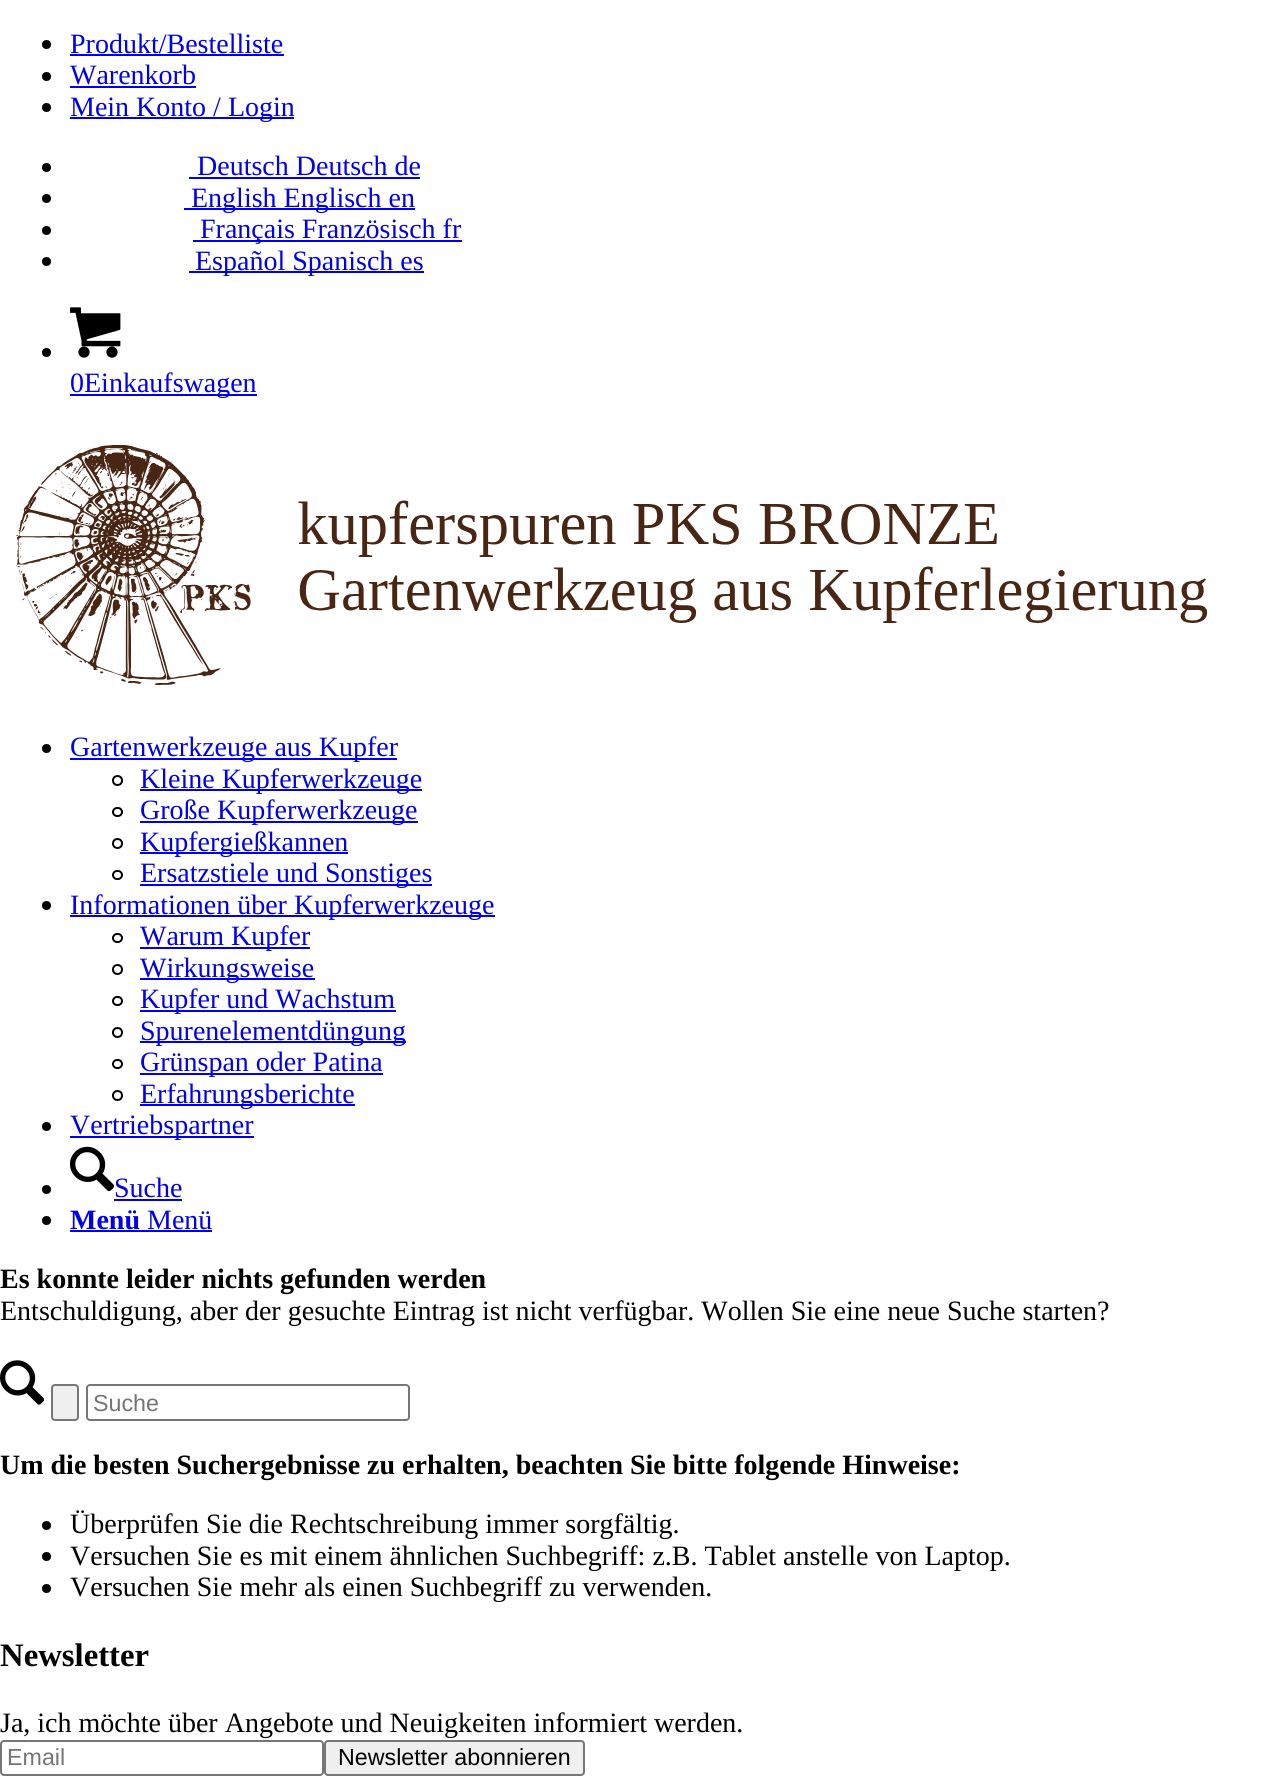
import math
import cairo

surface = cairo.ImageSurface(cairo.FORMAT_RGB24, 1261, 1792)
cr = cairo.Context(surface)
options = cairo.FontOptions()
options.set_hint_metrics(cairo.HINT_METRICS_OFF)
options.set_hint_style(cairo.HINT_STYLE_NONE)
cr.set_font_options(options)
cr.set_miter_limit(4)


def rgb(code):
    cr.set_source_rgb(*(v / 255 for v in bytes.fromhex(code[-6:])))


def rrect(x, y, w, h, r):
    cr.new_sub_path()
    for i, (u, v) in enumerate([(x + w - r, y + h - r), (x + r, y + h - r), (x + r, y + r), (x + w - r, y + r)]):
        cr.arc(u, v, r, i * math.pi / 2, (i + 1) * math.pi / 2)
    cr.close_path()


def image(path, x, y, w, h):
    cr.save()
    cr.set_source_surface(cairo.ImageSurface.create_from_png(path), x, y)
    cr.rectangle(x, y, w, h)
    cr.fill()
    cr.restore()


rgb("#ffffff")
cr.paint()
rgb("#000000")
cr.arc(46.5, 44.5, 4.5, 0, 2 * math.pi)
cr.fill()
rgb("#0000ee")
cr.rectangle(70, 54, 214, 2)
cr.fill()
rgb("#000000")
cr.arc(46.5, 76.5, 4.5, 0, 2 * math.pi)
cr.fill()
rgb("#0000ee")
cr.rectangle(70, 86, 126, 2)
cr.fill()
rgb("#000000")
cr.arc(46.5, 107.5, 4.5, 0, 2 * math.pi)
cr.fill()
rgb("#0000ee")
cr.rectangle(70, 117, 224, 2)
cr.fill()
rgb("#000000")
cr.arc(46.5, 167.5, 4.5, 0, 2 * math.pi)
cr.fill()
rgb("#0000ee")
cr.rectangle(189, 177, 231, 2)
cr.fill()
rgb("#000000")
cr.arc(46.5, 198.5, 4.5, 0, 2 * math.pi)
cr.fill()
rgb("#0000ee")
cr.rectangle(184, 208, 231, 2)
cr.fill()
rgb("#000000")
cr.arc(46.5, 230.5, 4.5, 0, 2 * math.pi)
cr.fill()
rgb("#0000ee")
cr.rectangle(193, 240, 269, 2)
cr.fill()
rgb("#000000")
cr.arc(46.5, 261.5, 4.5, 0, 2 * math.pi)
cr.fill()
rgb("#0000ee")
cr.rectangle(189, 271, 235, 2)
cr.fill()
rgb("#000000")
cr.arc(46.5, 352.5, 4.5, 0, 2 * math.pi)
cr.fill()
image("img/1.png", 70, 307, 51, 51)
rgb("#0000ee")
cr.rectangle(70, 394, 187, 2)
cr.fill()
image("img/2.png", 16, 445, 1192, 240)
rgb("#000000")
cr.arc(46.5, 748.5, 4.5, 0, 2 * math.pi)
cr.fill()
rgb("#0000ee")
cr.rectangle(70, 758, 327, 2)
cr.fill()
cr.arc(117.5, 780.5, 4.5, 0, 2 * math.pi)
rgb("#000000")
cr.stroke()
rgb("#0000ee")
cr.rectangle(140, 789, 282, 2)
cr.fill()
rrect(113, 808, 9, 8, 4)
rgb("#000000")
cr.stroke()
rgb("#0000ee")
cr.rectangle(140, 821, 278, 2)
cr.fill()
cr.arc(117.5, 843.5, 4.5, 0, 2 * math.pi)
rgb("#000000")
cr.stroke()
rgb("#0000ee")
cr.rectangle(140, 852, 208, 2)
cr.fill()
rrect(113, 871, 9, 8, 4)
rgb("#000000")
cr.stroke()
rgb("#0000ee")
cr.rectangle(140, 884, 292, 2)
cr.fill()
rgb("#000000")
cr.arc(46.5, 905.5, 4.5, 0, 2 * math.pi)
cr.fill()
rgb("#0000ee")
cr.rectangle(70, 915, 425, 2)
cr.fill()
rrect(113, 934, 9, 8, 4)
rgb("#000000")
cr.stroke()
rgb("#0000ee")
cr.rectangle(140, 947, 170, 2)
cr.fill()
cr.arc(117.5, 969.5, 4.5, 0, 2 * math.pi)
rgb("#000000")
cr.stroke()
rgb("#0000ee")
cr.rectangle(140, 978, 175, 2)
cr.fill()
rrect(113, 997, 9, 8, 4)
rgb("#000000")
cr.stroke()
rgb("#0000ee")
cr.rectangle(140, 1010, 256, 2)
cr.fill()
cr.arc(117.5, 1032.5, 4.5, 0, 2 * math.pi)
rgb("#000000")
cr.stroke()
rgb("#0000ee")
cr.rectangle(140, 1041, 266, 2)
cr.fill()
rrect(113, 1060, 9, 8, 4)
rgb("#000000")
cr.stroke()
rgb("#0000ee")
cr.rectangle(140, 1073, 243, 2)
cr.fill()
cr.arc(117.5, 1095.5, 4.5, 0, 2 * math.pi)
rgb("#000000")
cr.stroke()
rgb("#0000ee")
cr.rectangle(140, 1104, 215, 2)
cr.fill()
rgb("#000000")
cr.arc(46.5, 1126.5, 4.5, 0, 2 * math.pi)
cr.fill()
rgb("#0000ee")
cr.rectangle(70, 1136, 184, 2)
cr.fill()
rgb("#000000")
cr.arc(46.5, 1189.5, 4.5, 0, 2 * math.pi)
cr.fill()
image("img/3.png", 70, 1146, 44, 46)
rgb("#0000ee")
cr.rectangle(114, 1199, 68, 2)
cr.fill()
rgb("#000000")
cr.arc(46.5, 1220.5, 4.5, 0, 2 * math.pi)
cr.fill()
rgb("#0000ee")
cr.rectangle(70, 1230, 142, 2)
cr.fill()
image("img/4.png", 0, 1360, 44, 45)
rgb("#efefef")
rrect(52, 1385, 26, 35, 3)
cr.fill_preserve()
rgb("#767676")
cr.stroke()
rrect(87, 1385, 322, 35, 3)
cr.stroke()
rgb("#000000")
cr.arc(46.5, 1525.5, 4.5, 0, 2 * math.pi)
cr.fill()
cr.arc(46.5, 1556.5, 4.5, 0, 2 * math.pi)
cr.fill()
cr.arc(46.5, 1588.5, 4.5, 0, 2 * math.pi)
cr.fill()
rrect(1, 1741, 322, 34, 3)
rgb("#767676")
cr.stroke()
rgb("#efefef")
rrect(325, 1741, 259, 34, 3)
cr.fill_preserve()
rgb("#767676")
cr.stroke()
cr.select_font_face("Liberation Serif")
cr.set_font_size(28)
rgb("#0000ee")
for x, y, s in [
    (70, 53, "Produkt/Bestelliste"),
    (70, 84, "Warenkorb"),
    (70, 116, "Mein Konto / Login"),
    (197, 175, "Deutsch Deutsch de"),
    (191, 207, "English Englisch en"),
    (200, 238, "Français Französisch fr"),
    (195, 270, "Español Spanisch es"),
    (70, 392, "0Einkaufswagen"),
    (70, 756, "Gartenwerkzeuge aus Kupfer"),
    (140, 788, "Kleine Kupferwerkzeuge"),
    (140, 819, "Große Kupferwerkzeuge"),
    (140, 851, "Kupfergießkannen"),
    (140, 882, "Ersatzstiele und Sonstiges"),
    (70, 914, "Informationen über Kupferwerkzeuge"),
    (140, 945, "Warum Kupfer"),
    (140, 977, "Wirkungsweise"),
    (140, 1008, "Kupfer und Wachstum"),
    (140, 1040, "Spurenelementdüngung"),
    (140, 1071, "Grünspan oder Patina"),
    (140, 1103, "Erfahrungsberichte"),
    (70, 1134, "Vertriebspartner"),
    (114, 1197, "Suche"),
]:
    cr.move_to(x, y)
    cr.show_text(s)
cr.select_font_face("Liberation Serif", cairo.FONT_SLANT_NORMAL, cairo.FONT_WEIGHT_BOLD)
cr.move_to(70, 1229)
cr.show_text("Menü")
cr.select_font_face("Liberation Serif")
cr.move_to(147, 1229)
cr.show_text("Menü")
cr.select_font_face("Liberation Serif", cairo.FONT_SLANT_NORMAL, cairo.FONT_WEIGHT_BOLD)
rgb("#000000")
cr.move_to(0, 1288)
cr.show_text("Es konnte leider nichts gefunden werden")
cr.select_font_face("Liberation Serif")
cr.move_to(0, 1320)
cr.show_text("Entschuldigung, aber der gesuchte Eintrag ist nicht verfügbar. Wollen Sie eine neue Suche starten?")
cr.select_font_face("Liberation Sans")
cr.set_font_size(23.25)
rgb("#757575")
cr.move_to(93, 1411)
cr.show_text("Suche")
cr.select_font_face("Liberation Serif", cairo.FONT_SLANT_NORMAL, cairo.FONT_WEIGHT_BOLD)
cr.set_font_size(28)
rgb("#000000")
cr.move_to(0, 1474)
cr.show_text("Um die besten Suchergebnisse zu erhalten, beachten Sie bitte folgende Hinweise:")
cr.select_font_face("Liberation Serif")
for x, y, s in [
    (70, 1533, "Überprüfen Sie die Rechtschreibung immer sorgfältig."),
    (70, 1565, "Versuchen Sie es mit einem ähnlichen Suchbegriff: z.B. Tablet anstelle von Laptop."),
    (70, 1596, "Versuchen Sie mehr als einen Suchbegriff zu verwenden."),
]:
    cr.move_to(x, y)
    cr.show_text(s)
cr.select_font_face("Liberation Serif", cairo.FONT_SLANT_NORMAL, cairo.FONT_WEIGHT_BOLD)
cr.set_font_size(32.75)
cr.move_to(0, 1666)
cr.show_text("Newsletter")
cr.select_font_face("Liberation Serif")
cr.set_font_size(28)
cr.move_to(0, 1732)
cr.show_text("Ja, ich möchte über Angebote und Neuigkeiten informiert werden.")
cr.select_font_face("Liberation Sans")
cr.set_font_size(23.25)
rgb("#757575")
cr.move_to(7, 1765)
cr.show_text("Email")
rgb("#000000")
cr.move_to(338, 1765)
cr.show_text("Newsletter abonnieren")
surface.write_to_png("page.png")
